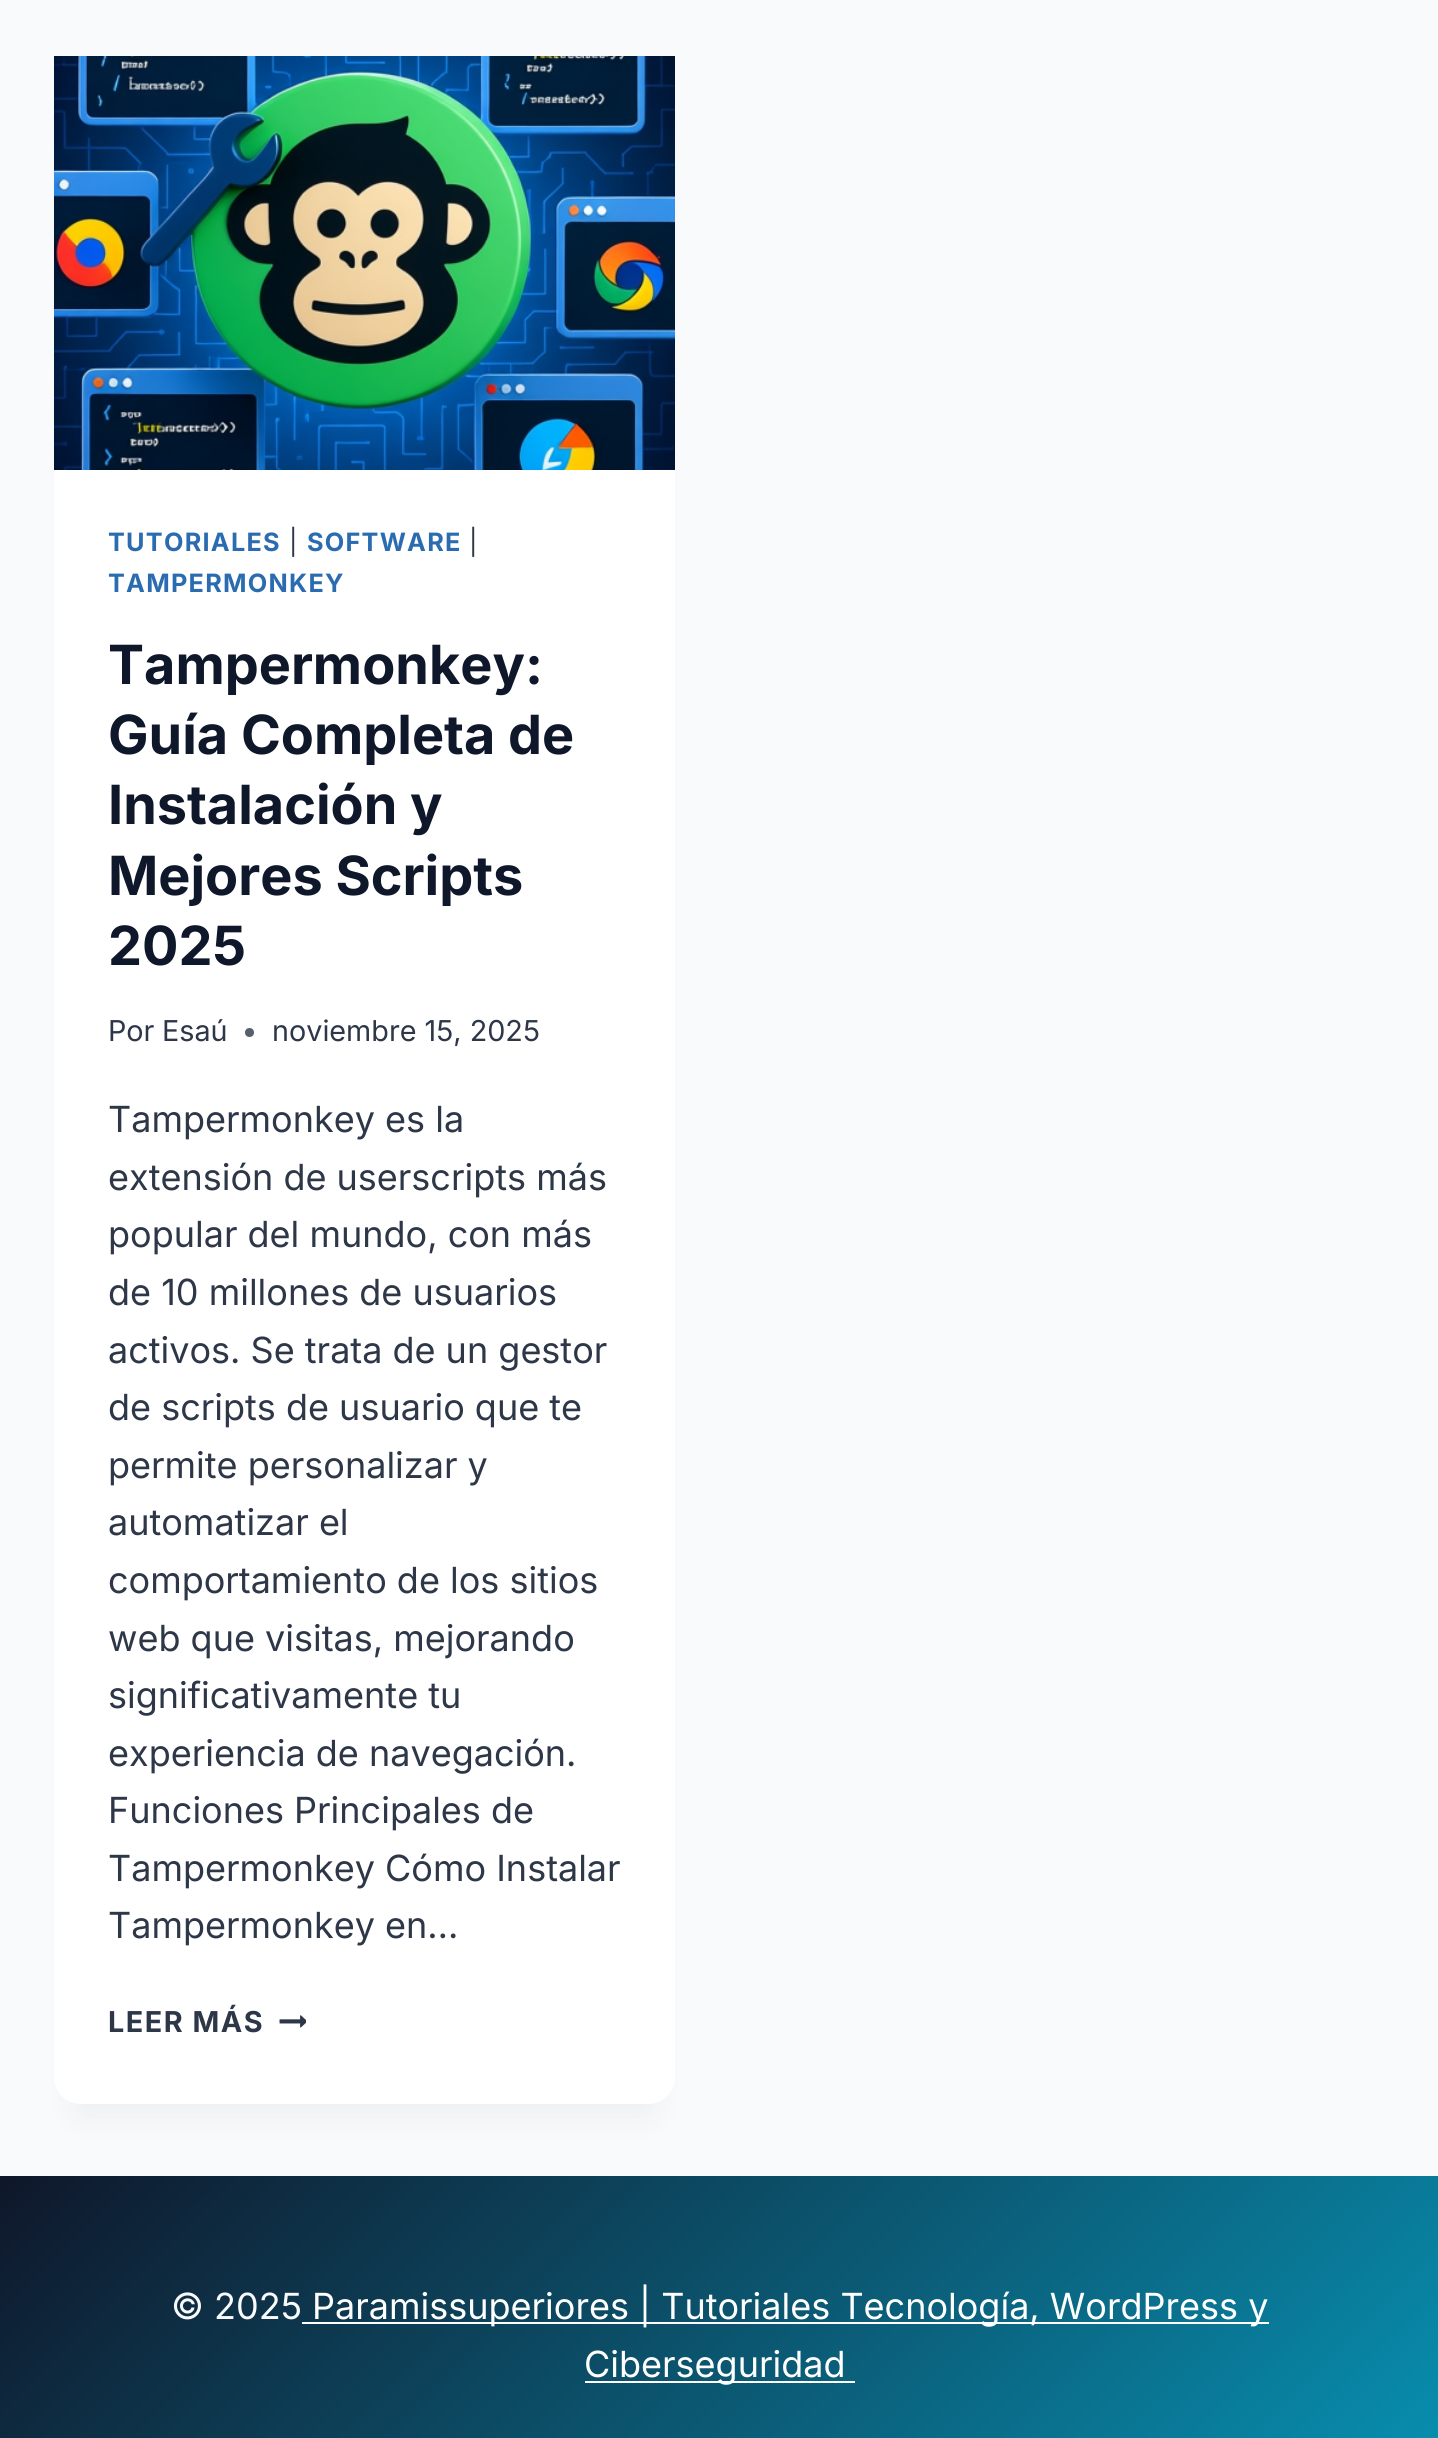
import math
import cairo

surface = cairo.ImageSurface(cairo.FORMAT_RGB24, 1438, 2438)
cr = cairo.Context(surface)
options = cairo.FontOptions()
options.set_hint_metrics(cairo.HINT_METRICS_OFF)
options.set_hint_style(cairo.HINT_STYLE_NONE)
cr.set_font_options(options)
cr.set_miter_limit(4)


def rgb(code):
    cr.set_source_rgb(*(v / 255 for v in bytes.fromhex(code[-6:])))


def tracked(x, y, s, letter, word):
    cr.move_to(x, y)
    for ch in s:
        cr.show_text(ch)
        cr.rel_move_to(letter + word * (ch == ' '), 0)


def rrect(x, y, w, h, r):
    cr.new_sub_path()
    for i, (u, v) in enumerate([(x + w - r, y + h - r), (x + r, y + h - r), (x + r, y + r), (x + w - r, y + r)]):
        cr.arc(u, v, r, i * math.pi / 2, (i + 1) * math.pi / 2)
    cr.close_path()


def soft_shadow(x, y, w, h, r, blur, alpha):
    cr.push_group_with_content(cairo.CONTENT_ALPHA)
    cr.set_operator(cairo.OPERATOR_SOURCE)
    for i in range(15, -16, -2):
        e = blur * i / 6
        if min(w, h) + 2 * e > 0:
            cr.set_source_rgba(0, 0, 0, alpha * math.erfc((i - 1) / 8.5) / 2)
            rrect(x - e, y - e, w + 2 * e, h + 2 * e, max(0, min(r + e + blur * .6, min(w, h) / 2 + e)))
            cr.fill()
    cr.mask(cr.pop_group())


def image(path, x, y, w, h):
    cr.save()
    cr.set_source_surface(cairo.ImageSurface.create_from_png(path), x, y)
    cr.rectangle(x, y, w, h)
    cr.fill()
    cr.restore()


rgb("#f8fafc")
cr.paint()
rgb("#000000")
soft_shadow(77, 113, 576, 2002, 5, 17, 0.05)
rgb("#ffffff")
rrect(54, 56, 621, 2048, 27)
cr.fill()
image("img/1.png", 54, 56, 621, 414)
rgb("#575f6d")
cr.arc(249.5, 1032.5, 4.5, 0, 2 * math.pi)
cr.fill()
image("img/2.png", 279, 2015, 27, 13)
gradient = cairo.LinearGradient(280, 1896, 1160, 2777)
gradient.add_color_stop_rgba(0, 0.059, 0.09, 0.165, 1)
gradient.add_color_stop_rgba(1, 0.031, 0.569, 0.698, 1)
cr.set_source(gradient)
cr.rectangle(0, 2176, 1438, 262)
cr.fill()
rgb("#ffffff")
cr.rectangle(302, 2322, 967, 2)
cr.fill()
cr.rectangle(585, 2381, 270, 2)
cr.fill()
cr.select_font_face("Inter", cairo.FONT_SLANT_NORMAL, cairo.FONT_WEIGHT_BOLD)
cr.set_font_size(25.25)
rgb("#2b6cb0")
tracked(108, 551, "TUTORIALES", 1.25, 0)
cr.select_font_face("Inter")
rgb("#2d3748")
tracked(289, 551, "|", 1.25, 0)
cr.select_font_face("Inter", cairo.FONT_SLANT_NORMAL, cairo.FONT_WEIGHT_BOLD)
rgb("#2b6cb0")
tracked(307, 551, "SOFTWARE", 1.25, 0)
cr.select_font_face("Inter")
rgb("#2d3748")
tracked(469, 551, "|", 1.25, 0)
cr.select_font_face("Inter", cairo.FONT_SLANT_NORMAL, cairo.FONT_WEIGHT_BOLD)
rgb("#2b6cb0")
tracked(108, 592, "TAMPERMONKEY", 1.25, 0)
cr.set_font_size(54)
rgb("#0f172a")
for x, y, s in [
    (108, 684, "Tampermonkey:"),
    (108, 754, "Guía Completa de"),
    (108, 824, "Instalación y"),
    (108, 895, "Mejores Scripts"),
    (108, 965, "2025"),
]:
    cr.move_to(x, y)
    cr.show_text(s)
cr.select_font_face("Inter")
cr.set_font_size(28.75)
rgb("#2d3748")
for x, y, s in [
    (108, 1041, "Por"),
    (162, 1041, "Esaú"),
    (272, 1041, "noviembre 15, 2025"),
]:
    cr.move_to(x, y)
    cr.show_text(s)
cr.set_font_size(36)
for x, y, s in [
    (108, 1132, "Tampermonkey es la"),
    (108, 1190, "extensión de userscripts más"),
    (108, 1247, "popular del mundo, con más"),
    (108, 1305, "de 10 millones de usuarios"),
    (108, 1363, "activos. Se trata de un gestor"),
    (108, 1420, "de scripts de usuario que te"),
    (108, 1478, "permite personalizar y"),
    (108, 1535, "automatizar el"),
    (108, 1593, "comportamiento de los sitios"),
    (108, 1651, "web que visitas, mejorando"),
    (108, 1708, "significativamente tu"),
    (108, 1766, "experiencia de navegación."),
    (108, 1823, "Funciones Principales de"),
    (108, 1881, "Tampermonkey Cómo Instalar"),
    (108, 1938, "Tampermonkey en…"),
]:
    cr.move_to(x, y)
    cr.show_text(s)
cr.select_font_face("Inter", cairo.FONT_SLANT_NORMAL, cairo.FONT_WEIGHT_BOLD)
cr.set_font_size(28.75)
tracked(108, 2032, "LEER MÁS", 1.5, 0)
cr.select_font_face("Inter")
cr.set_font_size(36)
rgb("#f8fafc")
cr.move_to(171, 2319)
cr.show_text("© 2025")
rgb("#ffffff")
cr.move_to(312, 2319)
cr.show_text("Paramissuperiores | Tutoriales Tecnología, WordPress y")
cr.move_to(584, 2377)
cr.show_text("Ciberseguridad")
surface.write_to_png("page.png")
